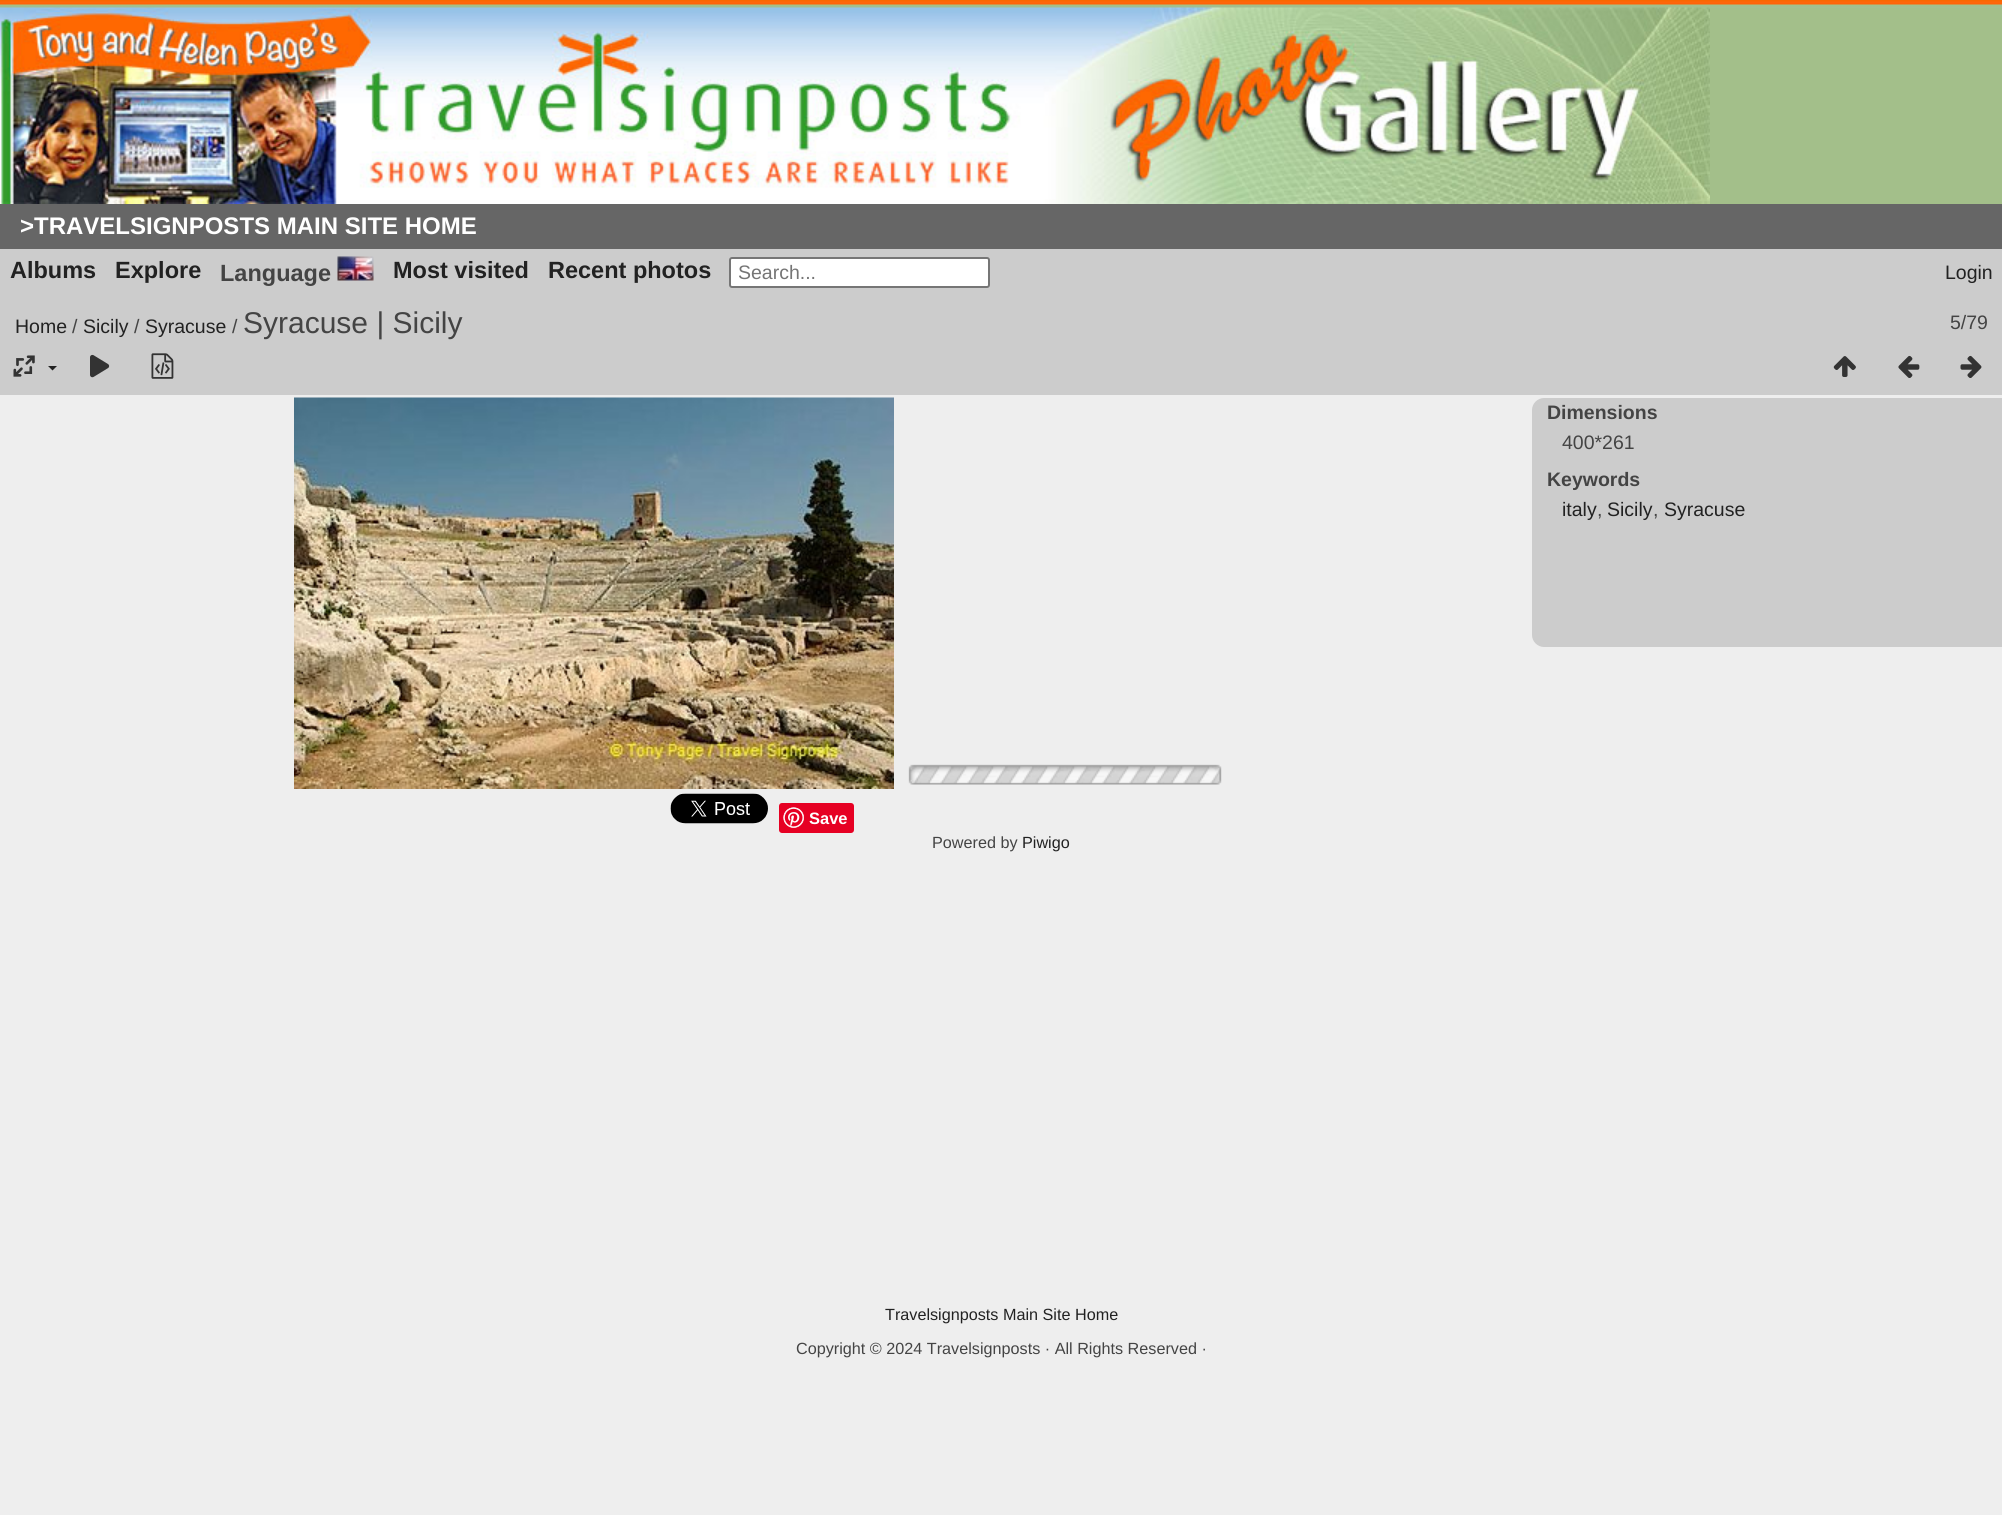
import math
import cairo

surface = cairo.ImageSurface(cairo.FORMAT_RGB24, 2002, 1515)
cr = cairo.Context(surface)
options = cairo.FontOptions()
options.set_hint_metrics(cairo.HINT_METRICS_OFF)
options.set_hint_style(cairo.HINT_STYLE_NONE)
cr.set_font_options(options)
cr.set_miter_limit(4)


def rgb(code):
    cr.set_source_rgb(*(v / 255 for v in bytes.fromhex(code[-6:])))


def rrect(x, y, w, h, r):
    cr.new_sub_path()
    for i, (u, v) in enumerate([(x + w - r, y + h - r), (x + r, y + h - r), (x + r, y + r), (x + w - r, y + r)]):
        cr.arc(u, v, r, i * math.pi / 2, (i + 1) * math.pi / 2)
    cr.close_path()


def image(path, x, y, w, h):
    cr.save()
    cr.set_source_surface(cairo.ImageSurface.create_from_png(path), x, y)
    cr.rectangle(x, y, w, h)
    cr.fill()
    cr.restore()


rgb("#eeeeee")
cr.paint()
rgb("#a3bf8a")
cr.rectangle(1710, 8, 292, 196)
cr.fill()
image("img/1.png", 0, 0, 2002, 8)
image("img/2.png", 0, 7, 1710, 197)
rgb("#666666")
cr.rectangle(0, 204, 2002, 45)
cr.fill()
rgb("#cccccc")
cr.rectangle(0, 249, 2002, 146)
cr.fill()
image("img/3.png", 337, 256, 37, 25)
rgb("#ffffff")
rrect(730, 258, 259, 29, 2)
cr.fill_preserve()
rgb("#767676")
cr.stroke()
image("img/4.png", 13, 355, 22, 22)
rgb("#222222")
cr.new_path()
cr.move_to(48, 366)
cr.line_to(57, 366)
cr.line_to(52.5, 370.5)
cr.close_path()
cr.fill()
image("img/5.png", 90, 354, 20, 24)
image("img/6.png", 151, 353, 23, 26)
image("img/7.png", 1833, 356, 23, 21)
image("img/8.png", 1898, 355, 22, 23)
image("img/9.png", 1960, 355, 22, 23)
rgb("#cccccc")
cr.new_path()
cr.move_to(1544, 398)
cr.line_to(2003, 398)
cr.line_to(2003, 647)
cr.line_to(1544, 647)
cr.curve_to(1537.5, 647, 1532, 641.5, 1532, 635)
cr.line_to(1532, 410)
cr.curve_to(1532, 403.5, 1537.5, 398, 1544, 398)
cr.close_path()
cr.fill()
image("img/10.png", 294, 397, 600, 392)
image("img/11.png", 908, 764, 314, 21)
image("img/12.png", 670, 793, 98, 31)
rgb("#e60023")
rrect(779, 803, 75, 30, 3)
cr.fill()
image("img/13.png", 783, 807, 21, 21)
cr.select_font_face("Liberation Sans", cairo.FONT_SLANT_NORMAL, cairo.FONT_WEIGHT_BOLD)
cr.set_font_size(24)
rgb("#ffffff")
cr.move_to(20, 234)
cr.show_text(">TRAVELSIGNPOSTS MAIN SITE HOME")
cr.set_font_size(23.5)
rgb("#222222")
cr.move_to(10, 278)
cr.show_text("Albums")
cr.move_to(115, 278)
cr.show_text("Explore")
rgb("#444444")
cr.move_to(220, 281)
cr.show_text("Language")
rgb("#222222")
cr.move_to(393, 278)
cr.show_text("Most visited")
cr.move_to(548, 278)
cr.show_text("Recent photos")
cr.select_font_face("Liberation Sans")
cr.set_font_size(19.5)
rgb("#757575")
cr.move_to(738, 279)
cr.show_text("Search...")
rgb("#222222")
cr.move_to(1945, 279)
cr.show_text("Login")
cr.move_to(15, 333)
cr.show_text("Home")
rgb("#444444")
cr.move_to(72, 333)
cr.show_text("/")
rgb("#222222")
cr.move_to(83, 333)
cr.show_text("Sicily")
rgb("#444444")
cr.move_to(134, 333)
cr.show_text("/")
rgb("#222222")
cr.move_to(145, 333)
cr.show_text("Syracuse")
rgb("#444444")
cr.move_to(232, 333)
cr.show_text("/")
cr.set_font_size(30)
cr.move_to(243, 333)
cr.show_text("Syracuse | Sicily")
cr.set_font_size(19.5)
cr.move_to(1950, 329)
cr.show_text("5/79")
cr.select_font_face("Liberation Sans", cairo.FONT_SLANT_NORMAL, cairo.FONT_WEIGHT_BOLD)
cr.move_to(1547, 419)
cr.show_text("Dimensions")
cr.select_font_face("Liberation Sans")
cr.move_to(1562, 449)
cr.show_text("400*261")
cr.select_font_face("Liberation Sans", cairo.FONT_SLANT_NORMAL, cairo.FONT_WEIGHT_BOLD)
cr.move_to(1547, 486)
cr.show_text("Keywords")
cr.select_font_face("Liberation Sans")
rgb("#222222")
cr.move_to(1562, 516)
cr.show_text("italy")
rgb("#444444")
cr.move_to(1597, 516)
cr.show_text(",")
rgb("#222222")
cr.move_to(1607, 516)
cr.show_text("Sicily")
rgb("#444444")
cr.move_to(1653, 516)
cr.show_text(",")
rgb("#222222")
cr.move_to(1664, 516)
cr.show_text("Syracuse")
cr.select_font_face("Liberation Sans", cairo.FONT_SLANT_NORMAL, cairo.FONT_WEIGHT_BOLD)
cr.set_font_size(16.5)
rgb("#ffffff")
cr.move_to(809, 824)
cr.show_text("Save")
cr.select_font_face("Liberation Sans")
cr.set_font_size(16.2)
rgb("#444444")
cr.move_to(932, 848)
cr.show_text("Powered by")
rgb("#222222")
cr.move_to(1022, 848)
cr.show_text("Piwigo")
cr.move_to(885, 1320)
cr.show_text("Travelsignposts Main Site Home")
rgb("#444444")
cr.move_to(796, 1354)
cr.show_text("Copyright © 2024 Travelsignposts · All Rights Reserved ·")
surface.write_to_png("page.png")
